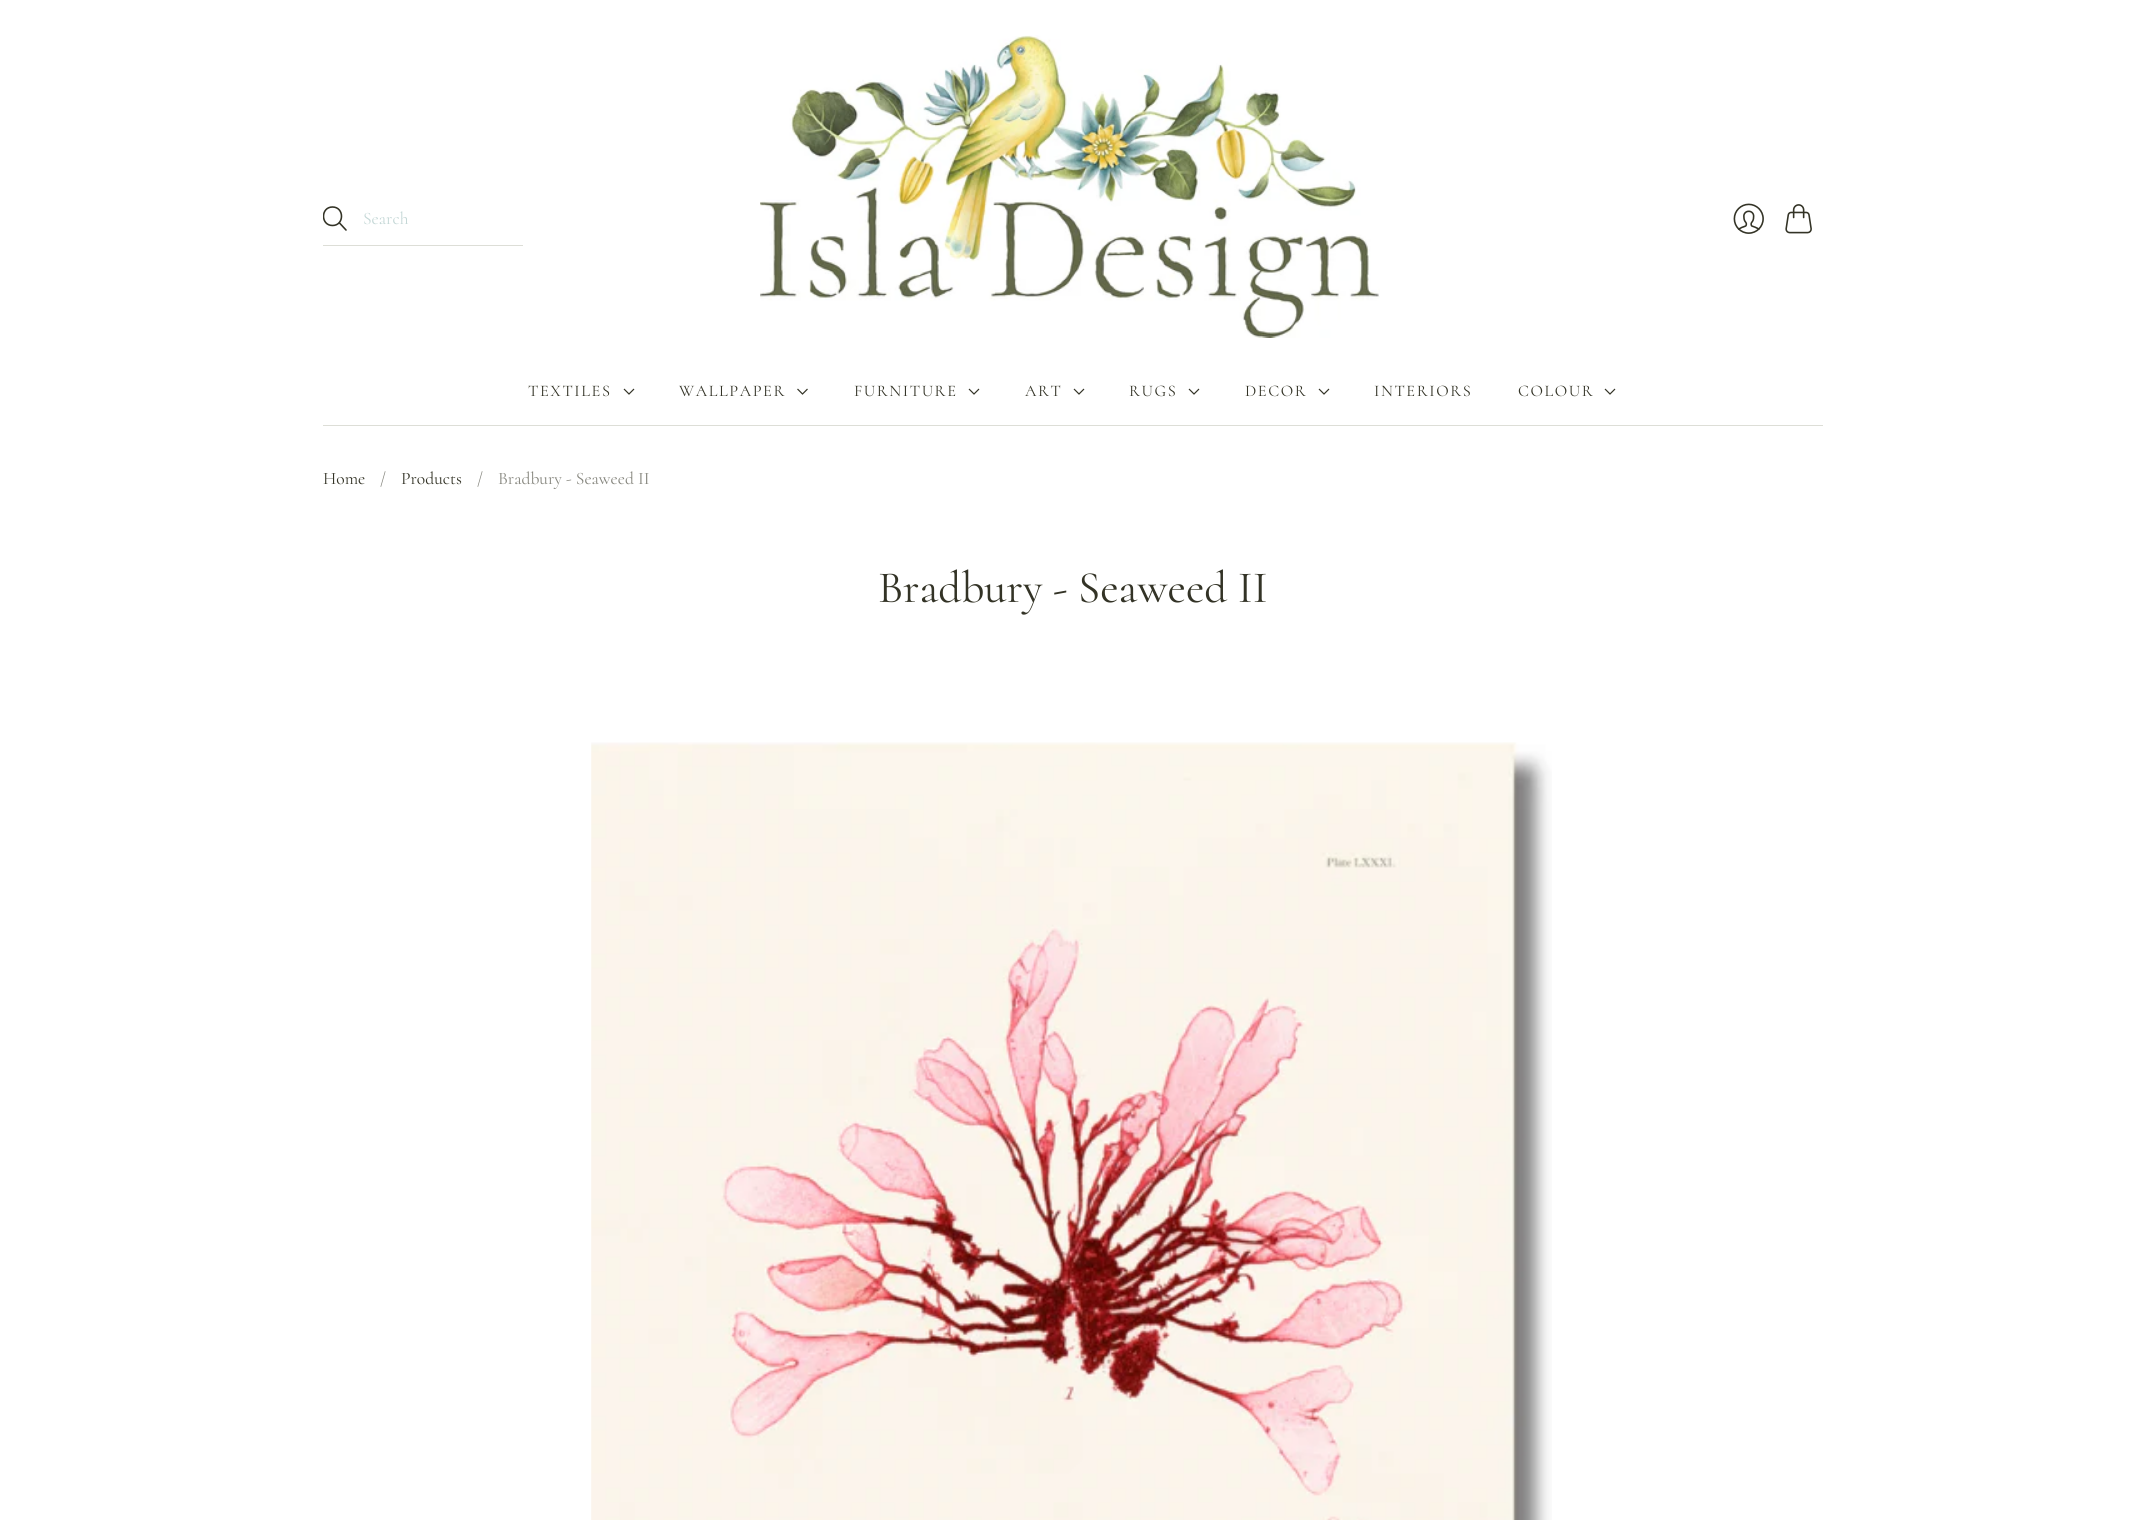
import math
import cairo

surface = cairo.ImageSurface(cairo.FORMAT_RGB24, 2145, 1520)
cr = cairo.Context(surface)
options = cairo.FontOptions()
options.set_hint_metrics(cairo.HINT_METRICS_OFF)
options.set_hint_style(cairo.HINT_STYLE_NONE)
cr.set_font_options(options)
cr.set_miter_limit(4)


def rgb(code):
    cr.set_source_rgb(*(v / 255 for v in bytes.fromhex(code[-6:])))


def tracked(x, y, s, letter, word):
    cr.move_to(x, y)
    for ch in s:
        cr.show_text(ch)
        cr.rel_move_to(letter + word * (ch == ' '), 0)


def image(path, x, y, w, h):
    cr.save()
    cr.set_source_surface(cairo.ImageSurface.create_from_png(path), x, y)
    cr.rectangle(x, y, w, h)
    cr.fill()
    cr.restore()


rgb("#ffffff")
cr.paint()
cr.save()
cr.rectangle(323, 206, 25, 25)
cr.clip()
cr.new_path()
cr.move_to(332.5, 225.5)
cr.curve_to(344.5, 225.5, 344.5, 207, 332.5, 207)
cr.curve_to(320.5, 207, 320.5, 225.5, 332.5, 225.5)
cr.close_path()
rgb("#333326")
cr.set_line_width(1.6)
cr.set_line_cap(cairo.LINE_CAP_ROUND)
cr.set_line_join(cairo.LINE_JOIN_ROUND)
cr.stroke()
cr.restore()
cr.new_path()
cr.move_to(346, 230)
cr.line_to(339.5, 223)
rgb("#333326")
cr.set_line_width(1.6)
cr.set_line_cap(cairo.LINE_CAP_ROUND)
cr.set_line_join(cairo.LINE_JOIN_ROUND)
cr.stroke()
rgb("#ddded7")
cr.rectangle(323, 245, 200, 1)
cr.fill()
image("img/1.png", 1733, 203, 31, 31)
image("img/2.png", 1785, 204, 27, 30)
cr.rectangle(323, 425, 1500, 1)
cr.fill()
image("img/3.png", 760, 35, 620, 303)
cr.new_path()
cr.move_to(624, 389)
cr.line_to(629, 394)
cr.line_to(634, 389)
rgb("#333326")
cr.set_line_width(1.2)
cr.set_line_cap(cairo.LINE_CAP_BUTT)
cr.set_line_join(cairo.LINE_JOIN_MITER)
cr.stroke()
cr.new_path()
cr.move_to(797.5, 389)
cr.line_to(802.5, 394)
cr.line_to(807.5, 389)
cr.stroke()
cr.new_path()
cr.move_to(969, 389)
cr.line_to(974, 394)
cr.line_to(979, 389)
cr.stroke()
cr.new_path()
cr.move_to(1074, 389)
cr.line_to(1079, 394)
cr.line_to(1084, 389)
cr.stroke()
cr.new_path()
cr.move_to(1189, 389)
cr.line_to(1194, 394)
cr.line_to(1199, 389)
cr.stroke()
cr.new_path()
cr.move_to(1319, 389)
cr.line_to(1324, 394)
cr.line_to(1329, 389)
cr.stroke()
cr.new_path()
cr.move_to(1605, 389)
cr.line_to(1610, 394)
cr.line_to(1615, 389)
cr.stroke()
image("img/4.png", 591, 742, 961, 778)
cr.select_font_face("Cormorant")
cr.set_font_size(17.5)
rgb("#c4d7d6")
cr.move_to(363, 224)
cr.show_text("Search")
cr.set_font_size(16.25)
rgb("#333326")
for x, y, s in [
    (528, 396, "TEXTILES"),
    (679, 396, "WALLPAPER"),
    (854, 396, "FURNITURE"),
    (1025, 396, "ART"),
    (1129, 396, "RUGS"),
    (1245, 396, "DECOR"),
    (1374, 396, "INTERIORS"),
    (1518, 396, "COLOUR"),
]:
    tracked(x, y, s, 1.6, 0)
cr.set_font_size(17.5)
cr.move_to(323, 484)
cr.show_text("Home")
rgb("#85857d")
cr.move_to(380, 484)
cr.show_text("/")
rgb("#333326")
cr.move_to(401, 484)
cr.show_text("Products")
rgb("#85857d")
cr.move_to(477, 484)
cr.show_text("/")
cr.move_to(498, 484)
cr.show_text("Bradbury - Seaweed II")
cr.set_font_size(45)
rgb("#333326")
cr.move_to(878, 602)
cr.show_text("Bradbury - Seaweed II")
surface.write_to_png("page.png")
